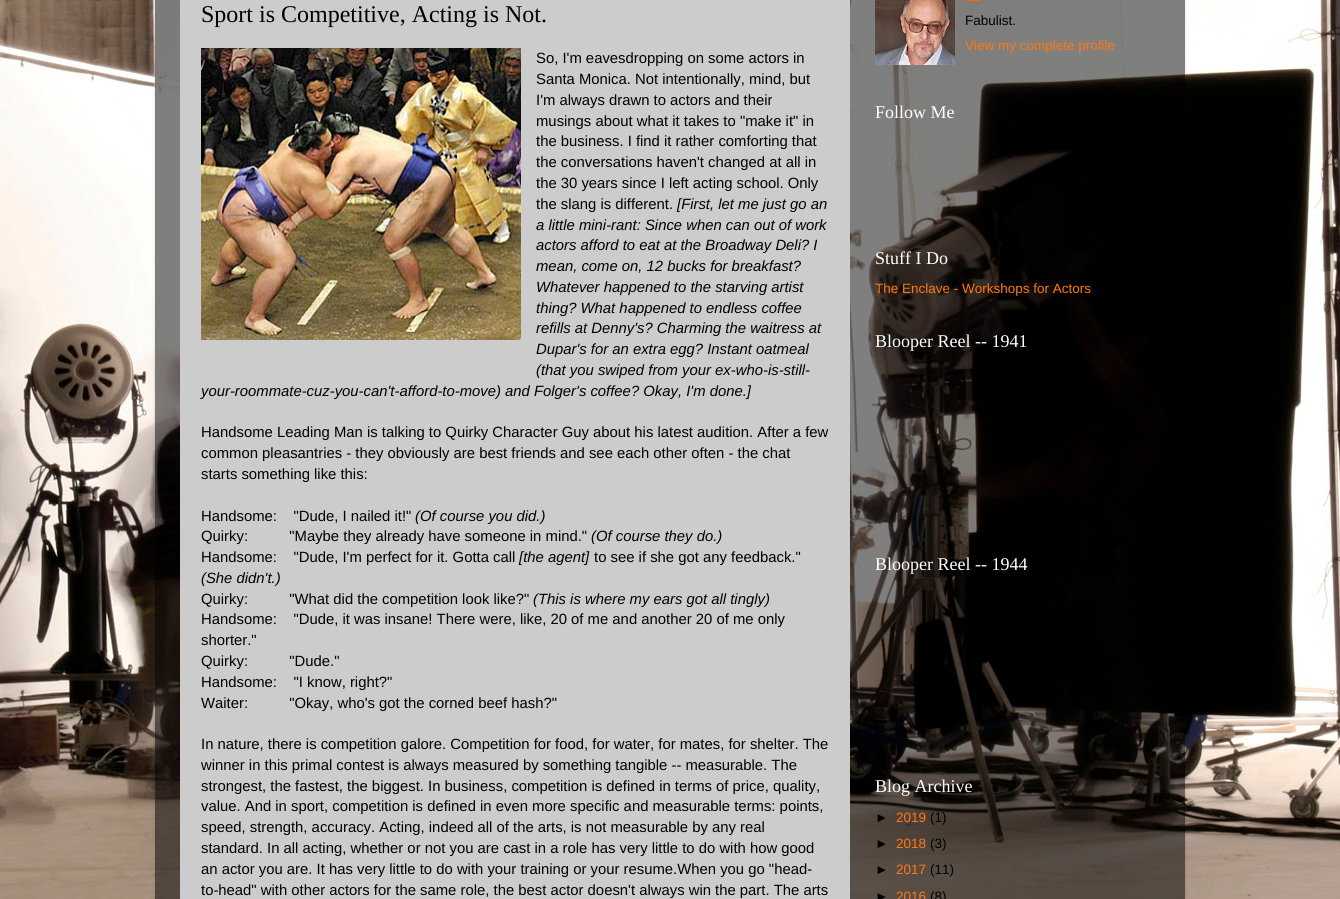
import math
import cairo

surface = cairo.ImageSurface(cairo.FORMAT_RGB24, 1340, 899)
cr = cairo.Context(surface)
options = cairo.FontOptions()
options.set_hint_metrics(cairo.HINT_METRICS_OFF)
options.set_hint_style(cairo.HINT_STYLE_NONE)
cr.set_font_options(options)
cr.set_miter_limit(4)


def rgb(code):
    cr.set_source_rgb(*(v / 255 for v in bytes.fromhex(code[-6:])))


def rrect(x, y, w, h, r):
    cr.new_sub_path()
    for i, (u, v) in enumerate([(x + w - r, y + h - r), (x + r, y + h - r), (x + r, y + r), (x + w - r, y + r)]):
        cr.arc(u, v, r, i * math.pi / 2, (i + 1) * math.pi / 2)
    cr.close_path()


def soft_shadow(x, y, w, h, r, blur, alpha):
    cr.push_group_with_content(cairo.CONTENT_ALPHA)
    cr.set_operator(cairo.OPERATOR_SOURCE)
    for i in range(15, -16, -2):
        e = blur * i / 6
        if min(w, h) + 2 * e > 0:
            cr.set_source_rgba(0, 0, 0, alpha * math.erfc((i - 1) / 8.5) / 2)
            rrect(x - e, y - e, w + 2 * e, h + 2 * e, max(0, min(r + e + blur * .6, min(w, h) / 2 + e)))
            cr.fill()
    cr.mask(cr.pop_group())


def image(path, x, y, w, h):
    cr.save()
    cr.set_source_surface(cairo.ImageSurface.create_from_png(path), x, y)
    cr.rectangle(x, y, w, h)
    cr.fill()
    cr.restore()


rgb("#ffffff")
cr.paint()
image("img/1.png", 0, 0, 1340, 899)
cr.save()
cr.set_fill_rule(cairo.FILL_RULE_EVEN_ODD)
cr.new_path()
cr.move_to(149, 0)
cr.line_to(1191, 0)
cr.line_to(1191, 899)
cr.line_to(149, 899)
cr.close_path()
cr.move_to(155, -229)
cr.line_to(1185, -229)
cr.line_to(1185, 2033)
cr.line_to(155, 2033)
cr.close_path()
cr.clip()
rgb("#000000")
soft_shadow(155, -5, 1030, 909, 0, 1.5, 0.15)
cr.restore()
cr.set_source_rgba(0, 0, 0, 0.5)
cr.rectangle(155, 0, 1030, 899)
cr.fill()
rgb("#cccccc")
cr.rectangle(180, 0, 670, 899)
cr.fill()
image("img/2.png", 201, 48, 320, 292)
image("img/3.png", 875, 0, 80, 65)
image("img/4.png", 965, 0, 16, 1)
cr.select_font_face("Liberation Serif")
cr.set_font_size(24)
rgb("#000000")
cr.move_to(201, 22)
cr.show_text("Sport is Competitive, Acting is Not.")
cr.select_font_face("Liberation Sans")
cr.set_font_size(14.85)
for x, y, s in [
    (536, 63, "So, I'm eavesdropping on some actors in"),
    (536, 84, "Santa Monica. Not intentionally, mind, but"),
    (536, 105, "I'm always drawn to actors and their"),
    (536, 126, "musings about what it takes to \"make it\" in"),
    (536, 146, "the business. I find it rather comforting that"),
    (536, 167, "the conversations haven't changed at all in"),
    (536, 188, "the 30 years since I left acting school. Only"),
    (536, 209, "the slang is different."),
]:
    cr.move_to(x, y)
    cr.show_text(s)
cr.select_font_face("Liberation Sans", cairo.FONT_SLANT_ITALIC)
for x, y, s in [
    (677, 209, "[First, let me just go an"),
    (536, 230, "a little mini-rant: Since when can out of work"),
    (536, 250, "actors afford to eat at the Broadway Deli? I"),
    (536, 271, "mean, come on, 12 bucks for breakfast?"),
    (536, 292, "Whatever happened to the starving artist"),
    (536, 313, "thing? What happened to endless coffee"),
    (536, 333, "refills at Denny's? Charming the waitress at"),
    (536, 354, "Dupar's for an extra egg? Instant oatmeal"),
    (536, 375, "(that you swiped from your ex-who-is-still-"),
    (201, 396, "your-roommate-cuz-you-can't-afford-to-move) and Folger's coffee? Okay, I'm done.]"),
]:
    cr.move_to(x, y)
    cr.show_text(s)
cr.select_font_face("Liberation Sans")
for x, y, s in [
    (201, 437, "Handsome Leading Man is talking to Quirky Character Guy about his latest audition. After a few"),
    (201, 458, "common pleasantries - they obviously are best friends and see each other often - the chat"),
    (201, 479, "starts something like this:"),
    (201, 521, "Handsome:    \"Dude, I nailed it!\""),
]:
    cr.move_to(x, y)
    cr.show_text(s)
cr.select_font_face("Liberation Sans", cairo.FONT_SLANT_ITALIC)
cr.move_to(415, 521)
cr.show_text("(Of course you did.)")
cr.select_font_face("Liberation Sans")
cr.move_to(201, 541)
cr.show_text("Quirky:          \"Maybe they already have someone in mind.\"")
cr.select_font_face("Liberation Sans", cairo.FONT_SLANT_ITALIC)
cr.move_to(591, 541)
cr.show_text("(Of course they do.)")
cr.select_font_face("Liberation Sans")
cr.move_to(201, 562)
cr.show_text("Handsome:    \"Dude, I'm perfect for it. Gotta call")
cr.select_font_face("Liberation Sans", cairo.FONT_SLANT_ITALIC)
cr.move_to(519, 562)
cr.show_text("[the agent]")
cr.select_font_face("Liberation Sans")
cr.move_to(594, 562)
cr.show_text("to see if she got any feedback.\"")
cr.select_font_face("Liberation Sans", cairo.FONT_SLANT_ITALIC)
cr.move_to(201, 583)
cr.show_text("(She didn't.)")
cr.select_font_face("Liberation Sans")
cr.move_to(201, 604)
cr.show_text("Quirky:          \"What did the competition look like?\"")
cr.select_font_face("Liberation Sans", cairo.FONT_SLANT_ITALIC)
cr.move_to(533, 604)
cr.show_text("(This is where my ears got all tingly)")
cr.select_font_face("Liberation Sans")
for x, y, s in [
    (201, 624, "Handsome:    \"Dude, it was insane! There were, like, 20 of me and another 20 of me only"),
    (201, 645, "shorter.\""),
    (201, 666, "Quirky:          \"Dude.\""),
    (201, 687, "Handsome:    \"I know, right?\""),
    (201, 708, "Waiter:          \"Okay, who's got the corned beef hash?\""),
    (201, 749, "In nature, there is competition galore. Competition for food, for water, for mates, for shelter. The"),
    (201, 770, "winner in this primal contest is always measured by something tangible -- measurable. The"),
    (201, 791, "strongest, the fastest, the biggest. In business, competition is defined in terms of price, quality,"),
    (201, 811, "value. And in sport, competition is defined in even more specific and measurable terms: points,"),
    (201, 832, "speed, strength, accuracy. Acting, indeed all of the arts, is not measurable by any real"),
    (201, 853, "standard. In all acting, whether or not you are cast in a role has very little to do with how good"),
    (201, 874, "an actor you are. It has very little to do with your training or your resume.When you go \"head-"),
    (201, 895, "to-head\" with other actors for the same role, the best actor doesn't always win the part. The arts"),
]:
    cr.move_to(x, y)
    cr.show_text(s)
cr.set_font_size(13.5)
cr.move_to(965, 25)
cr.show_text("Fabulist.")
rgb("#ff7814")
cr.move_to(965, 50)
cr.show_text("View my complete profile")
cr.select_font_face("Liberation Serif")
cr.set_font_size(18)
rgb("#ffffff")
cr.move_to(875, 118)
cr.show_text("Follow Me")
cr.move_to(875, 264)
cr.show_text("Stuff I Do")
cr.select_font_face("Liberation Sans")
cr.set_font_size(13.5)
rgb("#ff7814")
cr.move_to(875, 293)
cr.show_text("The Enclave - Workshops for Actors")
cr.select_font_face("Liberation Serif")
cr.set_font_size(18)
rgb("#ffffff")
for x, y, s in [
    (875, 347, "Blooper Reel -- 1941"),
    (875, 570, "Blooper Reel -- 1944"),
    (875, 792, "Blog Archive"),
]:
    cr.move_to(x, y)
    cr.show_text(s)
cr.select_font_face("Liberation Sans")
cr.set_font_size(13.5)
rgb("#000000")
cr.move_to(875, 822)
cr.show_text("►")
rgb("#ff7814")
cr.move_to(896, 822)
cr.show_text("2019")
rgb("#000000")
cr.move_to(930, 822)
cr.show_text("(1)")
cr.move_to(875, 848)
cr.show_text("►")
rgb("#ff7814")
cr.move_to(896, 848)
cr.show_text("2018")
rgb("#000000")
cr.move_to(930, 848)
cr.show_text("(3)")
cr.move_to(875, 874)
cr.show_text("►")
rgb("#ff7814")
cr.move_to(896, 874)
cr.show_text("2017")
rgb("#000000")
cr.move_to(930, 874)
cr.show_text("(11)")
cr.move_to(875, 901)
cr.show_text("►")
rgb("#ff7814")
cr.move_to(896, 901)
cr.show_text("2016")
rgb("#000000")
cr.move_to(930, 901)
cr.show_text("(8)")
surface.write_to_png("page.png")
